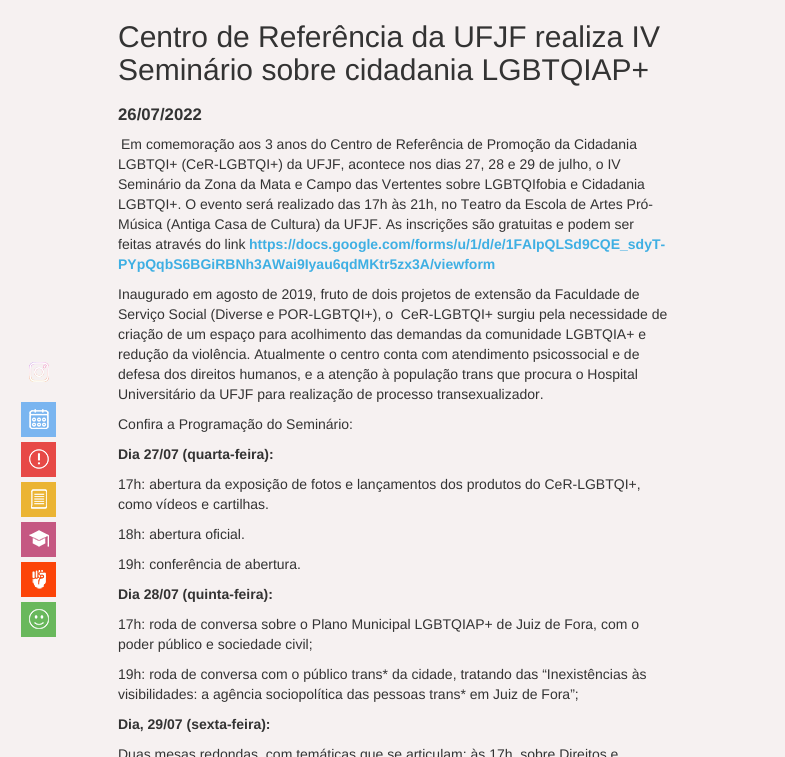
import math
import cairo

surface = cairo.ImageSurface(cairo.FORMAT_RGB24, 785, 757)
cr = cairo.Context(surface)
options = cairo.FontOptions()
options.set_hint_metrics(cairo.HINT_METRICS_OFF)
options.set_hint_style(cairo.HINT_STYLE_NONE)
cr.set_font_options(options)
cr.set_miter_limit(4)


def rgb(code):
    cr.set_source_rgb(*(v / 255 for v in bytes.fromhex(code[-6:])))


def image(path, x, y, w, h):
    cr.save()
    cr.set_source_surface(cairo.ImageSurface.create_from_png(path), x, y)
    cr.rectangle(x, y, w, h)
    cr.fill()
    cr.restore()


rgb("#f6f1f1")
cr.paint()
image("img/1.png", 29, 362, 20, 20)
rgb("#7ab5f0")
cr.rectangle(21, 402, 35, 35)
cr.fill()
image("img/2.png", 29, 409, 20, 20)
rgb("#e74946")
cr.rectangle(21, 442, 35, 35)
cr.fill()
image("img/3.png", 29, 449, 20, 20)
rgb("#ebb433")
cr.rectangle(21, 482, 35, 35)
cr.fill()
image("img/4.png", 31, 489, 16, 20)
rgb("#c55882")
cr.rectangle(21, 522, 35, 35)
cr.fill()
image("img/5.png", 29, 530, 20, 17)
rgb("#fc4408")
cr.rectangle(21, 562, 35, 35)
cr.fill()
image("img/6.png", 32, 570, 14, 19)
rgb("#69b85c")
cr.rectangle(21, 602, 35, 35)
cr.fill()
image("img/7.png", 29, 609, 20, 20)
cr.select_font_face("Liberation Sans")
cr.set_font_size(30)
rgb("#333333")
cr.move_to(118, 47)
cr.show_text("Centro de Referência da UFJF realiza IV")
cr.move_to(118, 80)
cr.show_text("Seminário sobre cidadania LGBTQIAP+")
cr.select_font_face("Liberation Sans", cairo.FONT_SLANT_NORMAL, cairo.FONT_WEIGHT_BOLD)
cr.set_font_size(16.75)
cr.move_to(118, 120)
cr.show_text("26/07/2022")
cr.select_font_face("Liberation Sans")
cr.set_font_size(14)
for x, y, s in [
    (121, 149, "Em comemoração aos 3 anos do Centro de Referência de Promoção da Cidadania"),
    (118, 169, "LGBTQI+ (CeR-LGBTQI+) da UFJF, acontece nos dias 27, 28 e 29 de julho, o IV"),
    (118, 189, "Seminário da Zona da Mata e Campo das Vertentes sobre LGBTQIfobia e Cidadania"),
    (118, 209, "LGBTQI+. O evento será realizado das 17h às 21h, no Teatro da Escola de Artes Pró-"),
    (118, 229, "Música (Antiga Casa de Cultura) da UFJF. As inscrições são gratuitas e podem ser"),
    (118, 249, "feitas através do link"),
]:
    cr.move_to(x, y)
    cr.show_text(s)
cr.select_font_face("Liberation Sans", cairo.FONT_SLANT_NORMAL, cairo.FONT_WEIGHT_BOLD)
rgb("#3eafe3")
cr.move_to(249, 249)
cr.show_text("https://docs.google.com/forms/u/1/d/e/1FAIpQLSd9CQE_sdyT-")
cr.move_to(118, 269)
cr.show_text("PYpQqbS6BGiRBNh3AWai9Iyau6qdMKtr5zx3A/viewform")
cr.select_font_face("Liberation Sans")
rgb("#333333")
for x, y, s in [
    (118, 299, "Inaugurado em agosto de 2019, fruto de dois projetos de extensão da Faculdade de"),
    (118, 319, "Serviço Social (Diverse e POR-LGBTQI+), o  CeR-LGBTQI+ surgiu pela necessidade de"),
    (118, 339, "criação de um espaço para acolhimento das demandas da comunidade LGBTQIA+ e"),
    (118, 359, "redução da violência. Atualmente o centro conta com atendimento psicossocial e de"),
    (118, 379, "defesa dos direitos humanos, e a atenção à população trans que procura o Hospital"),
    (118, 399, "Universitário da UFJF para realização de processo transexualizador."),
    (118, 429, "Confira a Programação do Seminário:"),
]:
    cr.move_to(x, y)
    cr.show_text(s)
cr.select_font_face("Liberation Sans", cairo.FONT_SLANT_NORMAL, cairo.FONT_WEIGHT_BOLD)
cr.move_to(118, 459)
cr.show_text("Dia 27/07 (quarta-feira):")
cr.select_font_face("Liberation Sans")
for x, y, s in [
    (118, 489, "17h: abertura da exposição de fotos e lançamentos dos produtos do CeR-LGBTQI+,"),
    (118, 509, "como vídeos e cartilhas."),
    (118, 539, "18h: abertura oficial."),
    (118, 569, "19h: conferência de abertura."),
]:
    cr.move_to(x, y)
    cr.show_text(s)
cr.select_font_face("Liberation Sans", cairo.FONT_SLANT_NORMAL, cairo.FONT_WEIGHT_BOLD)
cr.move_to(118, 599)
cr.show_text("Dia 28/07 (quinta-feira):")
cr.select_font_face("Liberation Sans")
for x, y, s in [
    (118, 629, "17h: roda de conversa sobre o Plano Municipal LGBTQIAP+ de Juiz de Fora, com o"),
    (118, 649, "poder público e sociedade civil;"),
    (118, 679, "19h: roda de conversa com o público trans* da cidade, tratando das “Inexistências às"),
    (118, 699, "visibilidades: a agência sociopolítica das pessoas trans* em Juiz de Fora”;"),
]:
    cr.move_to(x, y)
    cr.show_text(s)
cr.select_font_face("Liberation Sans", cairo.FONT_SLANT_NORMAL, cairo.FONT_WEIGHT_BOLD)
cr.move_to(118, 729)
cr.show_text("Dia, 29/07 (sexta-feira):")
cr.select_font_face("Liberation Sans")
cr.move_to(118, 759)
cr.show_text("Duas mesas redondas, com temáticas que se articulam: às 17h, sobre Direitos e")
surface.write_to_png("page.png")
